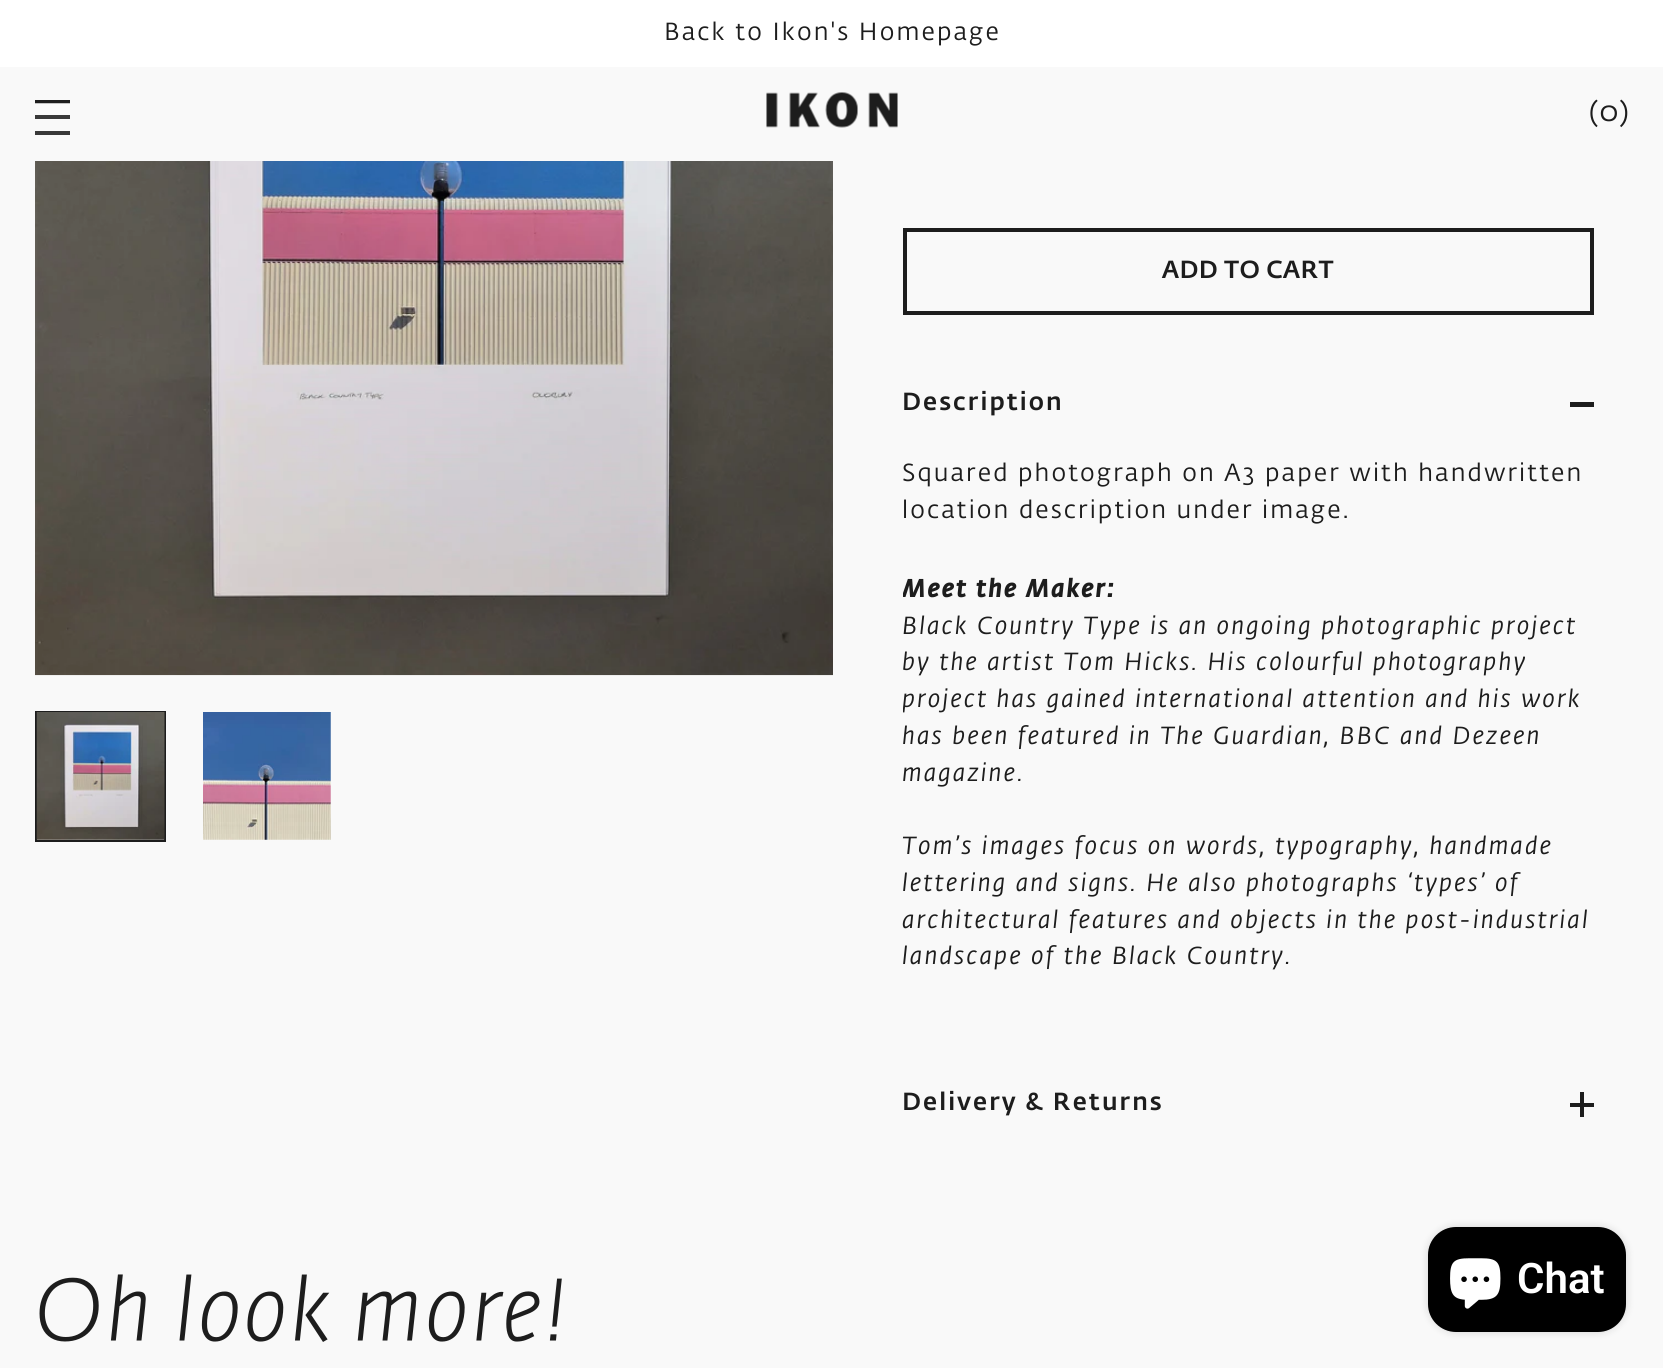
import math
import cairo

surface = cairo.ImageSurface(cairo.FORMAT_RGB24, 1663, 1368)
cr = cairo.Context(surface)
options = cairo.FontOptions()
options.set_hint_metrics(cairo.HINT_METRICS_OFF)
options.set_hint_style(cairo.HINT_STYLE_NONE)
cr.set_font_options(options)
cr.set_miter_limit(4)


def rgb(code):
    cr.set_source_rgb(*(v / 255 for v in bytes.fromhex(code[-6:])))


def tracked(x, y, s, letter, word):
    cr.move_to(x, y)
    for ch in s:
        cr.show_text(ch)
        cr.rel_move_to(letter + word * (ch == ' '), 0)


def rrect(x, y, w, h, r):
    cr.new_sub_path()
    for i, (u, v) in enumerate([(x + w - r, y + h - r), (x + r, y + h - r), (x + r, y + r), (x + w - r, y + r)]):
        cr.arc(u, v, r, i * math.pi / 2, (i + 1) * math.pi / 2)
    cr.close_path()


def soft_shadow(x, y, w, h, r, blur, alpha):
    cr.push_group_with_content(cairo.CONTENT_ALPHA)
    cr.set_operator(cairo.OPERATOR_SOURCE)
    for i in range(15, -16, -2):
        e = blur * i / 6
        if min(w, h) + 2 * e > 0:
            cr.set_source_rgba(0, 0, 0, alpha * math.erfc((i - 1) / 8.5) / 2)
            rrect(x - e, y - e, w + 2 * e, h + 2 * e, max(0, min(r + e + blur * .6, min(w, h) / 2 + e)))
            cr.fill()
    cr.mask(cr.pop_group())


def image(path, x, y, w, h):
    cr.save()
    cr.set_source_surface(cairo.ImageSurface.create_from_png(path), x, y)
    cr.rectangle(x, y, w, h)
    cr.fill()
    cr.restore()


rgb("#f9f9f9")
cr.paint()
for x, y, w, h, color in [
    (0, 0, 1663, 67, "#ffffff"),
    (35, 131, 35, 4, "#393939"),
    (35, 115, 35, 4, "#393939"),
]:
    rgb(color)
    cr.rectangle(x, y, w, h)
    cr.fill()
cr.save()
cr.rectangle(35, 100, 35, 35)
cr.clip()
cr.new_path()
cr.move_to(35, 101.5)
cr.line_to(70, 101.5)
rgb("#1d1d1d")
cr.set_line_width(3.5)
cr.stroke()
cr.restore()
image("img/1.png", 766, 92, 132, 36)
image("img/2.png", 35, 161, 798, 515)
cr.rectangle(36, 712, 129, 129)
rgb("#1d1d1d")
cr.stroke()
image("img/3.png", 36, 712, 129, 128)
image("img/4.png", 203, 712, 128, 128)
cr.rectangle(905, 230, 687, 83)
cr.set_line_width(4)
cr.stroke()
for x, y, w, h, color in [
    (1570, 402, 24, 5, "#1d1d1d"),
    (1580, 1092, 4, 25, "#1d1d1d"),
    (1570, 1103, 24, 4, "#1d1d1d"),
]:
    rgb(color)
    cr.rectangle(x, y, w, h)
    cr.fill()
image("img/5.png", 39, 1274, 523, 68)
rgb("#000000")
soft_shadow(1428, 1227, 198, 105, 28, 4.5, 0.15)
rgb("#000000")
rrect(1428, 1227, 198, 105, 28)
cr.fill()
image("img/6.png", 1450, 1258, 51, 51)
cr.select_font_face("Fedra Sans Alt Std")
cr.set_font_size(24.5)
rgb("#1d1d1d")
tracked(664, 40, "Back to Ikon's Homepage", 2.1, 0)
cr.set_font_size(28)
tracked(1589, 121, "(0)", 0.3, 0)
cr.select_font_face("Fedra Sans Alt Std Medium")
cr.set_font_size(24.5)
tracked(1162, 278, "ADD TO CART", 0.3, 0)
tracked(902, 410, "Description", 2.1, 0)
cr.select_font_face("Fedra Sans Alt Std")
tracked(902, 481, "Squared photograph on A3 paper with handwritten", 2.1, 0)
tracked(902, 518, "location description under image.", 2.1, 0)
cr.save()
cr.rectangle(903, 457, 691, 628)
cr.clip()
cr.select_font_face("Fedra Sans Alt Std", cairo.FONT_SLANT_ITALIC, cairo.FONT_WEIGHT_BOLD)
tracked(902, 597, "Meet the Maker:", 2.1, 0)
cr.restore()
cr.select_font_face("Fedra Sans Alt Std", cairo.FONT_SLANT_ITALIC)
tracked(902, 634, "Black Country Type is an ongoing photographic project", 2.1, 0)
tracked(902, 670, "by the artist Tom Hicks. His colourful photography", 2.1, 0)
cr.save()
cr.rectangle(903, 457, 691, 628)
cr.clip()
tracked(902, 707, "project has gained international attention and his work", 2.1, 0)
cr.restore()
for x, y, s in [
    (902, 744, "has been featured in The Guardian, BBC and Dezeen"),
    (902, 781, "magazine."),
    (902, 854, "Tom’s images focus on words, typography, handmade"),
    (902, 891, "lettering and signs. He also photographs ‘types’ of"),
    (902, 928, "architectural features and objects in the post-industrial"),
    (902, 964, "landscape of the Black Country."),
]:
    tracked(x, y, s, 2.1, 0)
cr.select_font_face("Fedra Sans Alt Std Medium")
tracked(902, 1110, "Delivery & Returns", 2.1, 0)
cr.select_font_face("Roboto SemiBold")
cr.set_font_size(42)
rgb("#ffffff")
cr.move_to(1517, 1293)
cr.show_text("Chat")
surface.write_to_png("page.png")
